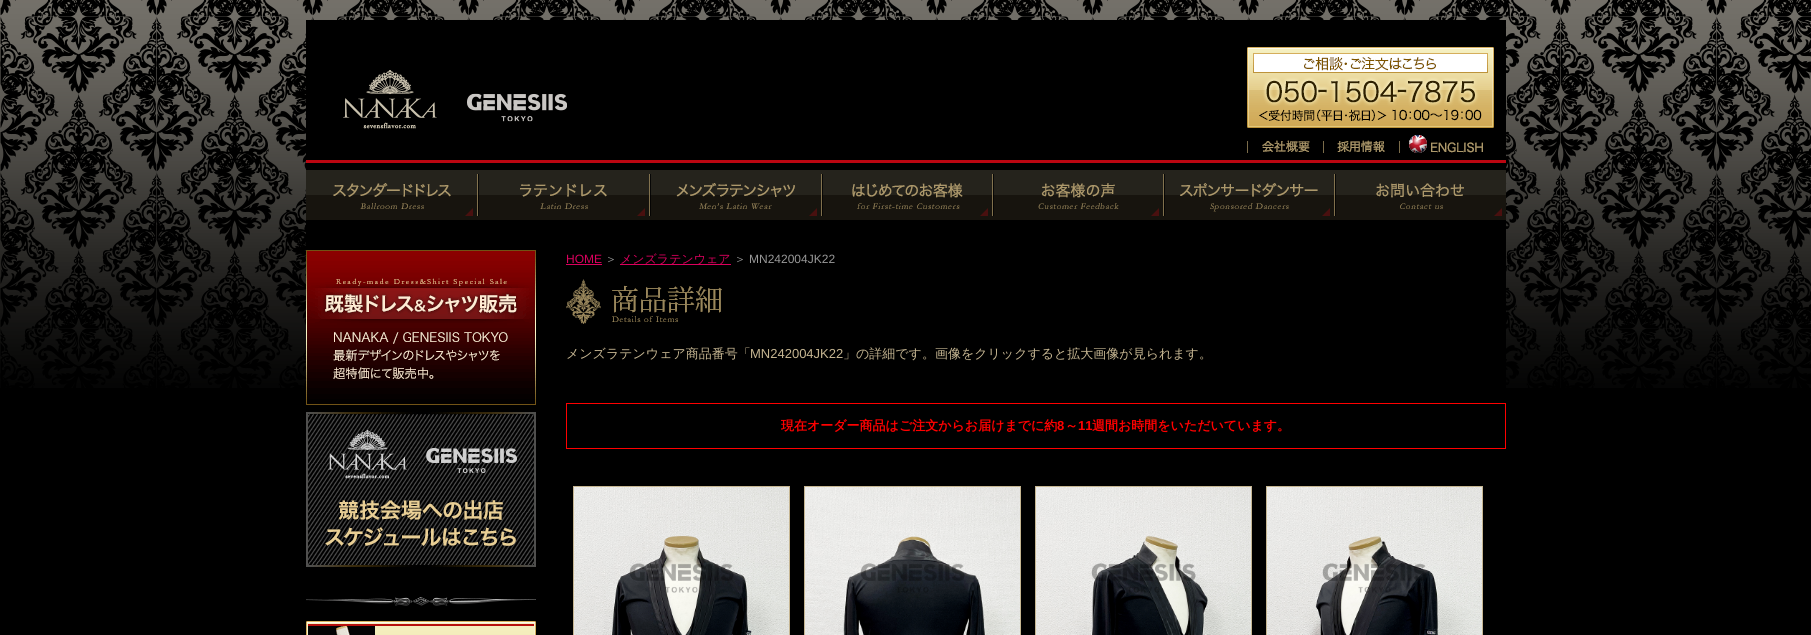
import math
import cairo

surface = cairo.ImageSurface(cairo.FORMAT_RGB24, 1811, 635)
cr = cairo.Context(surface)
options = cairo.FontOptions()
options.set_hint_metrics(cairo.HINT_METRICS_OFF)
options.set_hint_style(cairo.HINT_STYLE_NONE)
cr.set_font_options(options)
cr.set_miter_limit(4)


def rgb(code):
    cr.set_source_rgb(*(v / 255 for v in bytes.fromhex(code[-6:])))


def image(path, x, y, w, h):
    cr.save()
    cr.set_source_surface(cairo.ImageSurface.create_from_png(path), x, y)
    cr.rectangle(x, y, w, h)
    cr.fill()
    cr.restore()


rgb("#000000")
cr.paint()
image("img/1.png", 0, 0, 1811, 388)
rgb("#000000")
cr.rectangle(306, 20, 1200, 368)
cr.fill()
rgb("#bb0611")
cr.rectangle(306, 160, 1200, 3)
cr.fill()
image("img/2.png", 343, 70, 224, 59)
image("img/3.png", 1247, 47, 247, 81)
image("img/4.png", 1247, 140, 63, 13)
image("img/5.png", 1323, 140, 62, 13)
image("img/6.png", 1399, 135, 84, 18)
image("img/7.png", 306, 170, 172, 50)
image("img/8.png", 478, 170, 172, 50)
image("img/9.png", 650, 170, 172, 50)
image("img/10.png", 822, 170, 171, 50)
image("img/11.png", 993, 170, 171, 50)
image("img/12.png", 1164, 170, 171, 50)
image("img/13.png", 1335, 170, 171, 50)
image("img/14.png", 306, 250, 230, 155)
image("img/15.png", 306, 412, 230, 155)
image("img/16.png", 306, 597, 230, 9)
image("img/17.png", 306, 621, 230, 14)
rgb("#db005d")
cr.rectangle(566, 264, 36, 1)
cr.fill()
cr.rectangle(620, 264, 111, 1)
cr.fill()
image("img/18.png", 566, 279, 156, 45)
cr.rectangle(566.5, 403.5, 939, 45)
rgb("#ff0000")
cr.set_line_width(1)
cr.stroke()
cr.rectangle(573.5, 486.5, 216, 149)
rgb("#c6b692")
cr.stroke()
image("img/19.png", 574, 487, 215, 148)
cr.rectangle(804.5, 486.5, 216, 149)
cr.stroke()
image("img/20.png", 805, 487, 215, 148)
cr.rectangle(1035.5, 486.5, 216, 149)
cr.stroke()
image("img/21.png", 1036, 487, 215, 148)
cr.rectangle(1266.5, 486.5, 216, 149)
cr.stroke()
image("img/22.png", 1267, 487, 215, 148)
cr.select_font_face("Liberation Sans")
cr.set_font_size(12)
rgb("#db005d")
cr.move_to(566, 263)
cr.show_text("HOME")
cr.select_font_face("WenQuanYi Zen Hei Medium")
rgb("#999999")
cr.move_to(605, 263)
cr.show_text("＞")
rgb("#db005d")
cr.move_to(620, 263)
cr.show_text("メンズラテンウェア")
rgb("#999999")
cr.move_to(734, 263)
cr.show_text("＞")
cr.select_font_face("Liberation Sans")
cr.move_to(749, 263)
cr.show_text("MN242004JK22")
cr.select_font_face("WenQuanYi Zen Hei Medium")
cr.set_font_size(13)
rgb("#c6b692")
cr.move_to(566, 358)
cr.show_text("メンズラテンウェア商品番号「")
cr.select_font_face("Liberation Sans")
cr.move_to(750, 358)
cr.show_text("MN242004JK22")
cr.select_font_face("WenQuanYi Zen Hei Medium")
cr.move_to(843, 358)
cr.show_text("」の詳細です。画像をクリックすると拡大画像が見られます。")
cr.select_font_face("WenQuanYi Zen Hei", cairo.FONT_SLANT_NORMAL, cairo.FONT_WEIGHT_BOLD)
rgb("#ff0000")
cr.move_to(781, 430)
cr.show_text("現在オーダー商品はご注文からお届けまでに約")
cr.select_font_face("Liberation Sans", cairo.FONT_SLANT_NORMAL, cairo.FONT_WEIGHT_BOLD)
cr.move_to(1057, 430)
cr.show_text("8")
cr.select_font_face("WenQuanYi Zen Hei", cairo.FONT_SLANT_NORMAL, cairo.FONT_WEIGHT_BOLD)
cr.move_to(1065, 430)
cr.show_text("～")
cr.select_font_face("Liberation Sans", cairo.FONT_SLANT_NORMAL, cairo.FONT_WEIGHT_BOLD)
cr.move_to(1078, 430)
cr.show_text("11")
cr.select_font_face("WenQuanYi Zen Hei", cairo.FONT_SLANT_NORMAL, cairo.FONT_WEIGHT_BOLD)
cr.move_to(1092, 430)
cr.show_text("週間お時間をいただいています。")
surface.write_to_png("page.png")
